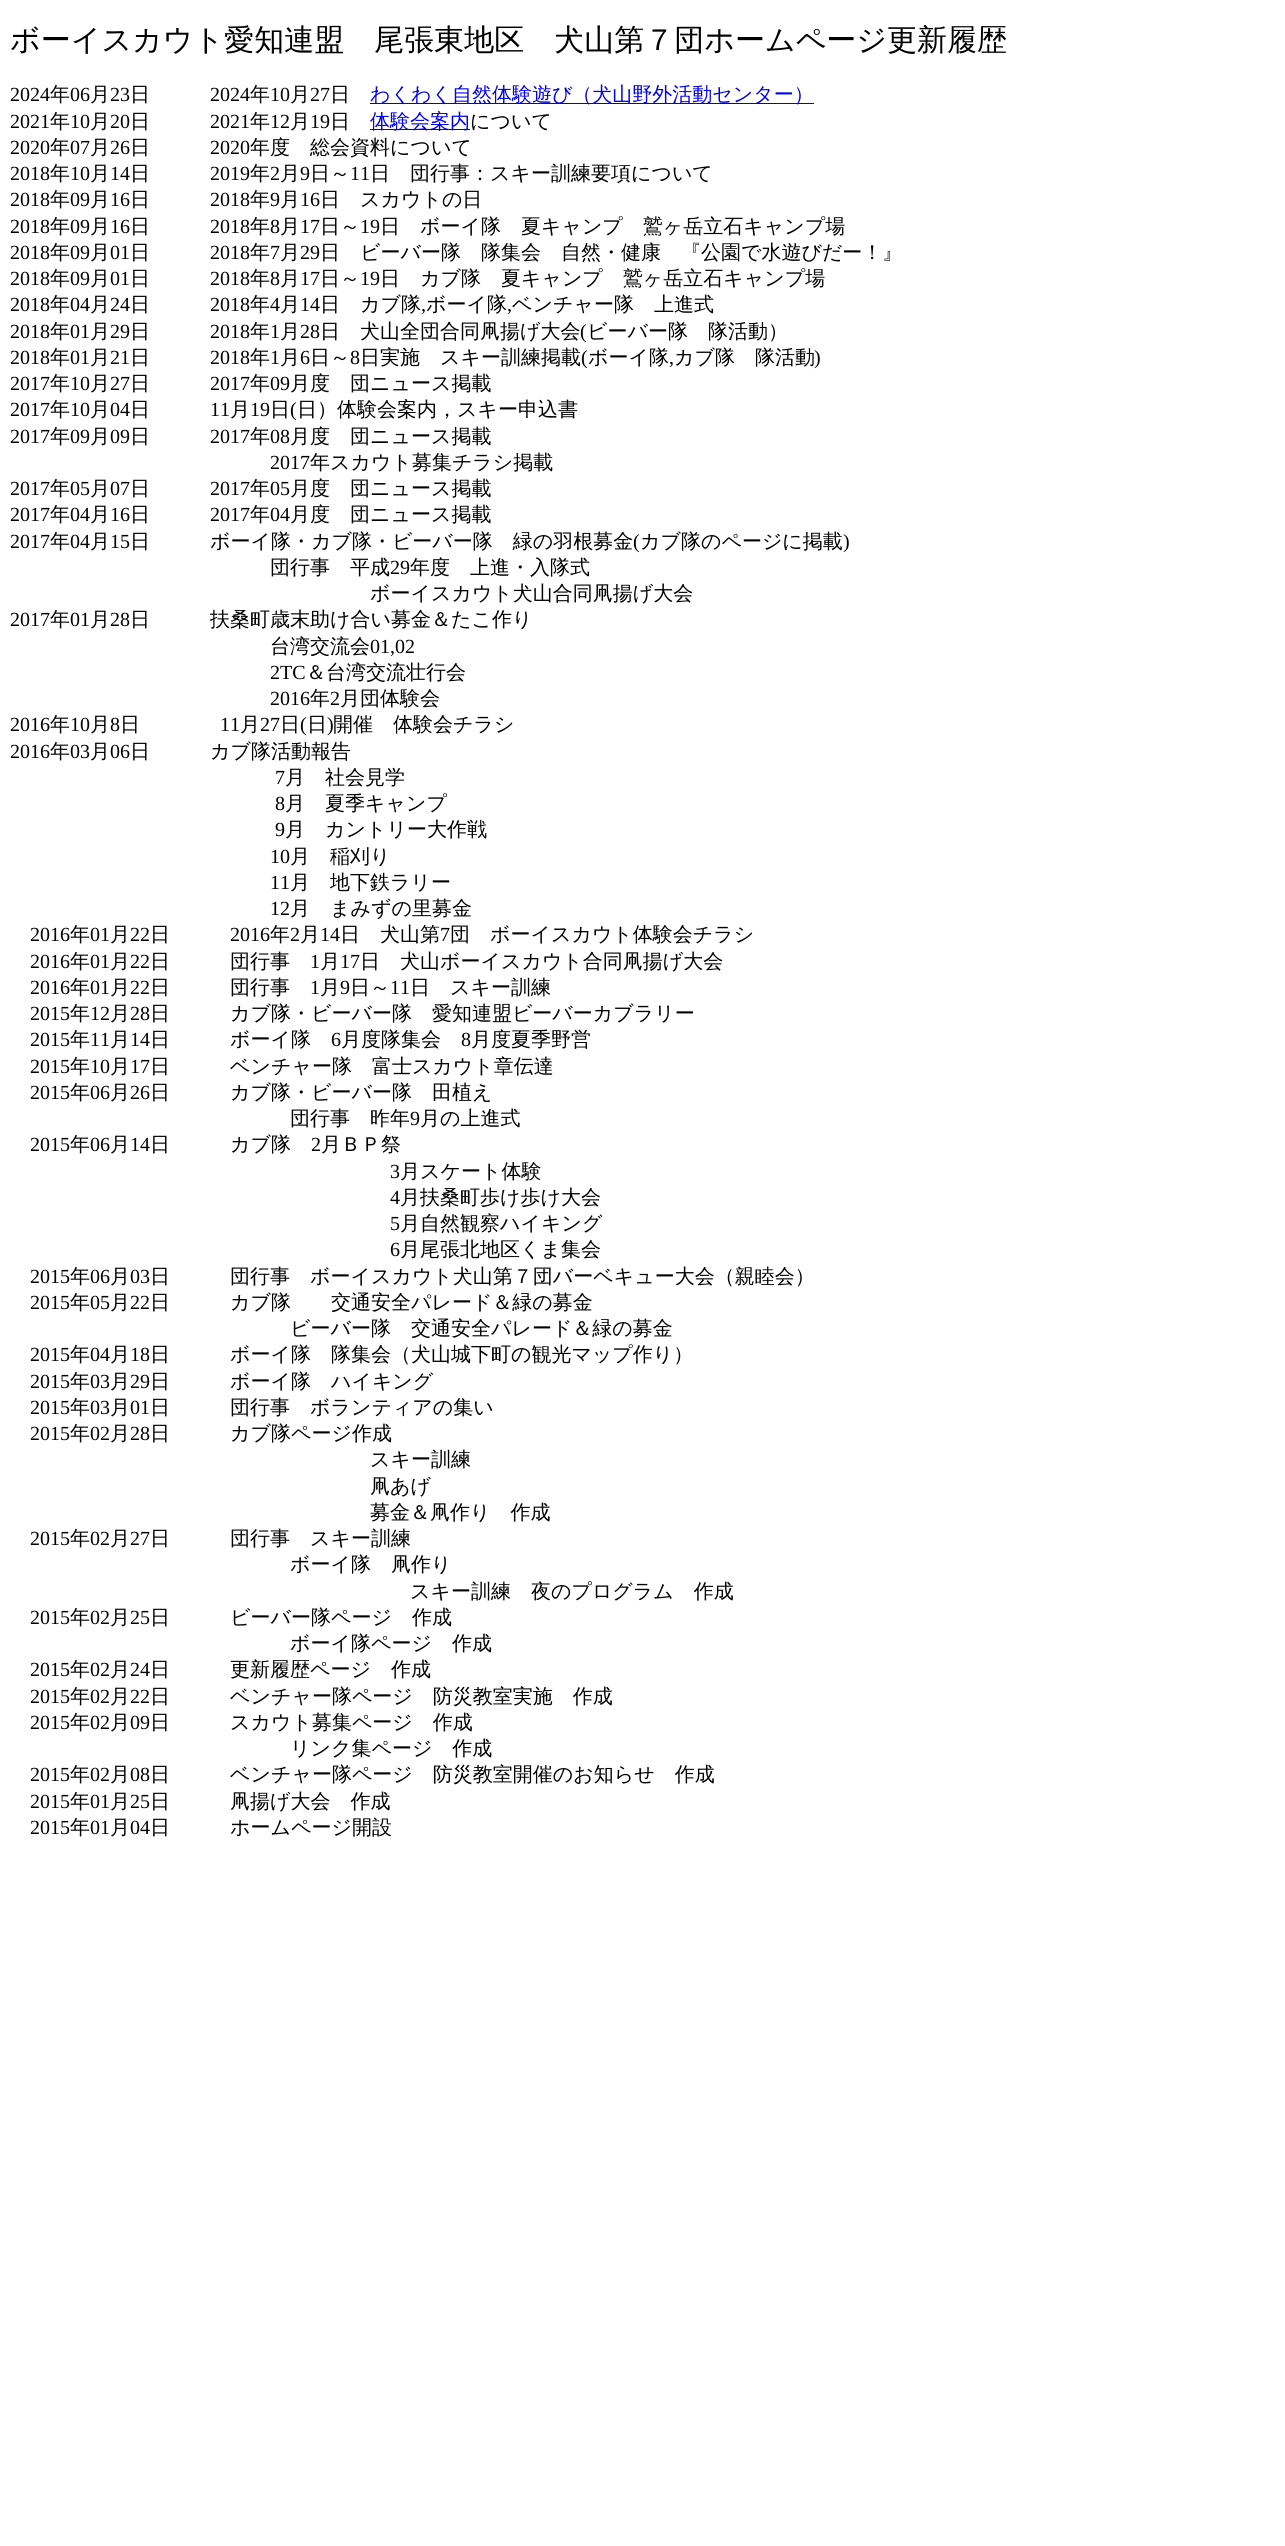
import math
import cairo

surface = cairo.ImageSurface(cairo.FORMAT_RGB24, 1285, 2546)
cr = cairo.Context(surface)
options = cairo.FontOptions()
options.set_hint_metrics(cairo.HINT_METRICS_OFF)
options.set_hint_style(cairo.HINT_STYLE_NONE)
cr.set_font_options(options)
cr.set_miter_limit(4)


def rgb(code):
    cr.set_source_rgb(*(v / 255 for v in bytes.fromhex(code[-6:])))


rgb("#ffffff")
cr.paint()
rgb("#0000ee")
cr.rectangle(370, 103, 444, 1)
cr.fill()
cr.rectangle(370, 129, 100, 1)
cr.fill()
cr.select_font_face("WenQuanYi Zen Hei Medium")
cr.set_font_size(30)
rgb("#000000")
cr.move_to(10, 50)
cr.show_text("ボーイスカウト愛知連盟　尾張東地区　犬山第７団ホームページ更新履歴")
cr.select_font_face("Liberation Serif")
cr.set_font_size(20)
cr.move_to(10, 101)
cr.show_text("2024")
cr.select_font_face("WenQuanYi Zen Hei Medium")
cr.move_to(50, 101)
cr.show_text("年")
cr.select_font_face("Liberation Serif")
cr.move_to(70, 101)
cr.show_text("06")
cr.select_font_face("WenQuanYi Zen Hei Medium")
cr.move_to(90, 101)
cr.show_text("月")
cr.select_font_face("Liberation Serif")
cr.move_to(110, 101)
cr.show_text("23")
cr.select_font_face("WenQuanYi Zen Hei Medium")
cr.move_to(130, 101)
cr.show_text("日")
cr.select_font_face("Liberation Serif")
cr.move_to(210, 101)
cr.show_text("2024")
cr.select_font_face("WenQuanYi Zen Hei Medium")
cr.move_to(250, 101)
cr.show_text("年")
cr.select_font_face("Liberation Serif")
cr.move_to(270, 101)
cr.show_text("10")
cr.select_font_face("WenQuanYi Zen Hei Medium")
cr.move_to(290, 101)
cr.show_text("月")
cr.select_font_face("Liberation Serif")
cr.move_to(310, 101)
cr.show_text("27")
cr.select_font_face("WenQuanYi Zen Hei Medium")
cr.move_to(330, 101)
cr.show_text("日")
rgb("#0000ee")
cr.move_to(370, 101)
cr.show_text("わくわく自然体験遊び（犬山野外活動センター）")
cr.select_font_face("Liberation Serif")
rgb("#000000")
cr.move_to(10, 128)
cr.show_text("2021")
cr.select_font_face("WenQuanYi Zen Hei Medium")
cr.move_to(50, 128)
cr.show_text("年")
cr.select_font_face("Liberation Serif")
cr.move_to(70, 128)
cr.show_text("10")
cr.select_font_face("WenQuanYi Zen Hei Medium")
cr.move_to(90, 128)
cr.show_text("月")
cr.select_font_face("Liberation Serif")
cr.move_to(110, 128)
cr.show_text("20")
cr.select_font_face("WenQuanYi Zen Hei Medium")
cr.move_to(130, 128)
cr.show_text("日")
cr.select_font_face("Liberation Serif")
cr.move_to(210, 128)
cr.show_text("2021")
cr.select_font_face("WenQuanYi Zen Hei Medium")
cr.move_to(250, 128)
cr.show_text("年")
cr.select_font_face("Liberation Serif")
cr.move_to(270, 128)
cr.show_text("12")
cr.select_font_face("WenQuanYi Zen Hei Medium")
cr.move_to(290, 128)
cr.show_text("月")
cr.select_font_face("Liberation Serif")
cr.move_to(310, 128)
cr.show_text("19")
cr.select_font_face("WenQuanYi Zen Hei Medium")
cr.move_to(330, 128)
cr.show_text("日")
rgb("#0000ee")
cr.move_to(370, 128)
cr.show_text("体験会案内")
rgb("#000000")
cr.move_to(470, 128)
cr.show_text("について")
cr.select_font_face("Liberation Serif")
cr.move_to(10, 154)
cr.show_text("2020")
cr.select_font_face("WenQuanYi Zen Hei Medium")
cr.move_to(50, 154)
cr.show_text("年")
cr.select_font_face("Liberation Serif")
cr.move_to(70, 154)
cr.show_text("07")
cr.select_font_face("WenQuanYi Zen Hei Medium")
cr.move_to(90, 154)
cr.show_text("月")
cr.select_font_face("Liberation Serif")
cr.move_to(110, 154)
cr.show_text("26")
cr.select_font_face("WenQuanYi Zen Hei Medium")
cr.move_to(130, 154)
cr.show_text("日")
cr.select_font_face("Liberation Serif")
cr.move_to(210, 154)
cr.show_text("2020")
cr.select_font_face("WenQuanYi Zen Hei Medium")
cr.move_to(250, 154)
cr.show_text("年度　総会資料について")
cr.select_font_face("Liberation Serif")
cr.move_to(10, 180)
cr.show_text("2018")
cr.select_font_face("WenQuanYi Zen Hei Medium")
cr.move_to(50, 180)
cr.show_text("年")
cr.select_font_face("Liberation Serif")
cr.move_to(70, 180)
cr.show_text("10")
cr.select_font_face("WenQuanYi Zen Hei Medium")
cr.move_to(90, 180)
cr.show_text("月")
cr.select_font_face("Liberation Serif")
cr.move_to(110, 180)
cr.show_text("14")
cr.select_font_face("WenQuanYi Zen Hei Medium")
cr.move_to(130, 180)
cr.show_text("日")
cr.select_font_face("Liberation Serif")
cr.move_to(210, 180)
cr.show_text("2019")
cr.select_font_face("WenQuanYi Zen Hei Medium")
cr.move_to(250, 180)
cr.show_text("年")
cr.select_font_face("Liberation Serif")
cr.move_to(270, 180)
cr.show_text("2")
cr.select_font_face("WenQuanYi Zen Hei Medium")
cr.move_to(280, 180)
cr.show_text("月")
cr.select_font_face("Liberation Serif")
cr.move_to(300, 180)
cr.show_text("9")
cr.select_font_face("WenQuanYi Zen Hei Medium")
cr.move_to(310, 180)
cr.show_text("日～")
cr.select_font_face("Liberation Serif")
cr.move_to(350, 180)
cr.show_text("11")
cr.select_font_face("WenQuanYi Zen Hei Medium")
cr.move_to(370, 180)
cr.show_text("日　団行事：スキー訓練要項について")
cr.select_font_face("Liberation Serif")
cr.move_to(10, 206)
cr.show_text("2018")
cr.select_font_face("WenQuanYi Zen Hei Medium")
cr.move_to(50, 206)
cr.show_text("年")
cr.select_font_face("Liberation Serif")
cr.move_to(70, 206)
cr.show_text("09")
cr.select_font_face("WenQuanYi Zen Hei Medium")
cr.move_to(90, 206)
cr.show_text("月")
cr.select_font_face("Liberation Serif")
cr.move_to(110, 206)
cr.show_text("16")
cr.select_font_face("WenQuanYi Zen Hei Medium")
cr.move_to(130, 206)
cr.show_text("日")
cr.select_font_face("Liberation Serif")
cr.move_to(210, 206)
cr.show_text("2018")
cr.select_font_face("WenQuanYi Zen Hei Medium")
cr.move_to(250, 206)
cr.show_text("年")
cr.select_font_face("Liberation Serif")
cr.move_to(270, 206)
cr.show_text("9")
cr.select_font_face("WenQuanYi Zen Hei Medium")
cr.move_to(280, 206)
cr.show_text("月")
cr.select_font_face("Liberation Serif")
cr.move_to(300, 206)
cr.show_text("16")
cr.select_font_face("WenQuanYi Zen Hei Medium")
cr.move_to(320, 206)
cr.show_text("日　スカウトの日")
cr.select_font_face("Liberation Serif")
cr.move_to(10, 233)
cr.show_text("2018")
cr.select_font_face("WenQuanYi Zen Hei Medium")
cr.move_to(50, 233)
cr.show_text("年")
cr.select_font_face("Liberation Serif")
cr.move_to(70, 233)
cr.show_text("09")
cr.select_font_face("WenQuanYi Zen Hei Medium")
cr.move_to(90, 233)
cr.show_text("月")
cr.select_font_face("Liberation Serif")
cr.move_to(110, 233)
cr.show_text("16")
cr.select_font_face("WenQuanYi Zen Hei Medium")
cr.move_to(130, 233)
cr.show_text("日")
cr.select_font_face("Liberation Serif")
cr.move_to(210, 233)
cr.show_text("2018")
cr.select_font_face("WenQuanYi Zen Hei Medium")
cr.move_to(250, 233)
cr.show_text("年")
cr.select_font_face("Liberation Serif")
cr.move_to(270, 233)
cr.show_text("8")
cr.select_font_face("WenQuanYi Zen Hei Medium")
cr.move_to(280, 233)
cr.show_text("月")
cr.select_font_face("Liberation Serif")
cr.move_to(300, 233)
cr.show_text("17")
cr.select_font_face("WenQuanYi Zen Hei Medium")
cr.move_to(320, 233)
cr.show_text("日～")
cr.select_font_face("Liberation Serif")
cr.move_to(360, 233)
cr.show_text("19")
cr.select_font_face("WenQuanYi Zen Hei Medium")
cr.move_to(380, 233)
cr.show_text("日　ボーイ隊　夏キャンプ　鷲ヶ岳立石キャンプ場")
cr.select_font_face("Liberation Serif")
cr.move_to(10, 259)
cr.show_text("2018")
cr.select_font_face("WenQuanYi Zen Hei Medium")
cr.move_to(50, 259)
cr.show_text("年")
cr.select_font_face("Liberation Serif")
cr.move_to(70, 259)
cr.show_text("09")
cr.select_font_face("WenQuanYi Zen Hei Medium")
cr.move_to(90, 259)
cr.show_text("月")
cr.select_font_face("Liberation Serif")
cr.move_to(110, 259)
cr.show_text("01")
cr.select_font_face("WenQuanYi Zen Hei Medium")
cr.move_to(130, 259)
cr.show_text("日")
cr.select_font_face("Liberation Serif")
cr.move_to(210, 259)
cr.show_text("2018")
cr.select_font_face("WenQuanYi Zen Hei Medium")
cr.move_to(250, 259)
cr.show_text("年")
cr.select_font_face("Liberation Serif")
cr.move_to(270, 259)
cr.show_text("7")
cr.select_font_face("WenQuanYi Zen Hei Medium")
cr.move_to(280, 259)
cr.show_text("月")
cr.select_font_face("Liberation Serif")
cr.move_to(300, 259)
cr.show_text("29")
cr.select_font_face("WenQuanYi Zen Hei Medium")
cr.move_to(320, 259)
cr.show_text("日　ビーバー隊　隊集会　自然・健康　『公園で水遊びだー！』")
cr.select_font_face("Liberation Serif")
cr.move_to(10, 285)
cr.show_text("2018")
cr.select_font_face("WenQuanYi Zen Hei Medium")
cr.move_to(50, 285)
cr.show_text("年")
cr.select_font_face("Liberation Serif")
cr.move_to(70, 285)
cr.show_text("09")
cr.select_font_face("WenQuanYi Zen Hei Medium")
cr.move_to(90, 285)
cr.show_text("月")
cr.select_font_face("Liberation Serif")
cr.move_to(110, 285)
cr.show_text("01")
cr.select_font_face("WenQuanYi Zen Hei Medium")
cr.move_to(130, 285)
cr.show_text("日")
cr.select_font_face("Liberation Serif")
cr.move_to(210, 285)
cr.show_text("2018")
cr.select_font_face("WenQuanYi Zen Hei Medium")
cr.move_to(250, 285)
cr.show_text("年")
cr.select_font_face("Liberation Serif")
cr.move_to(270, 285)
cr.show_text("8")
cr.select_font_face("WenQuanYi Zen Hei Medium")
cr.move_to(280, 285)
cr.show_text("月")
cr.select_font_face("Liberation Serif")
cr.move_to(300, 285)
cr.show_text("17")
cr.select_font_face("WenQuanYi Zen Hei Medium")
cr.move_to(320, 285)
cr.show_text("日～")
cr.select_font_face("Liberation Serif")
cr.move_to(360, 285)
cr.show_text("19")
cr.select_font_face("WenQuanYi Zen Hei Medium")
cr.move_to(380, 285)
cr.show_text("日　カブ隊　夏キャンプ　鷲ヶ岳立石キャンプ場")
cr.select_font_face("Liberation Serif")
cr.move_to(10, 311)
cr.show_text("2018")
cr.select_font_face("WenQuanYi Zen Hei Medium")
cr.move_to(50, 311)
cr.show_text("年")
cr.select_font_face("Liberation Serif")
cr.move_to(70, 311)
cr.show_text("04")
cr.select_font_face("WenQuanYi Zen Hei Medium")
cr.move_to(90, 311)
cr.show_text("月")
cr.select_font_face("Liberation Serif")
cr.move_to(110, 311)
cr.show_text("24")
cr.select_font_face("WenQuanYi Zen Hei Medium")
cr.move_to(130, 311)
cr.show_text("日")
cr.select_font_face("Liberation Serif")
cr.move_to(210, 311)
cr.show_text("2018")
cr.select_font_face("WenQuanYi Zen Hei Medium")
cr.move_to(250, 311)
cr.show_text("年")
cr.select_font_face("Liberation Serif")
cr.move_to(270, 311)
cr.show_text("4")
cr.select_font_face("WenQuanYi Zen Hei Medium")
cr.move_to(280, 311)
cr.show_text("月")
cr.select_font_face("Liberation Serif")
cr.move_to(300, 311)
cr.show_text("14")
cr.select_font_face("WenQuanYi Zen Hei Medium")
cr.move_to(320, 311)
cr.show_text("日　カブ隊")
cr.select_font_face("Liberation Serif")
cr.move_to(421, 311)
cr.show_text(",")
cr.select_font_face("WenQuanYi Zen Hei Medium")
cr.move_to(426, 311)
cr.show_text("ボーイ隊")
cr.select_font_face("Liberation Serif")
cr.move_to(507, 311)
cr.show_text(",")
cr.select_font_face("WenQuanYi Zen Hei Medium")
cr.move_to(512, 311)
cr.show_text("ベンチャー隊　上進式")
cr.select_font_face("Liberation Serif")
cr.move_to(10, 338)
cr.show_text("2018")
cr.select_font_face("WenQuanYi Zen Hei Medium")
cr.move_to(50, 338)
cr.show_text("年")
cr.select_font_face("Liberation Serif")
cr.move_to(70, 338)
cr.show_text("01")
cr.select_font_face("WenQuanYi Zen Hei Medium")
cr.move_to(90, 338)
cr.show_text("月")
cr.select_font_face("Liberation Serif")
cr.move_to(110, 338)
cr.show_text("29")
cr.select_font_face("WenQuanYi Zen Hei Medium")
cr.move_to(130, 338)
cr.show_text("日")
cr.select_font_face("Liberation Serif")
cr.move_to(210, 338)
cr.show_text("2018")
cr.select_font_face("WenQuanYi Zen Hei Medium")
cr.move_to(250, 338)
cr.show_text("年")
cr.select_font_face("Liberation Serif")
cr.move_to(270, 338)
cr.show_text("1")
cr.select_font_face("WenQuanYi Zen Hei Medium")
cr.move_to(280, 338)
cr.show_text("月")
cr.select_font_face("Liberation Serif")
cr.move_to(300, 338)
cr.show_text("28")
cr.select_font_face("WenQuanYi Zen Hei Medium")
cr.move_to(320, 338)
cr.show_text("日　犬山全団合同凧揚げ大会")
cr.select_font_face("Liberation Serif")
cr.move_to(580, 338)
cr.show_text("(")
cr.select_font_face("WenQuanYi Zen Hei Medium")
cr.move_to(587, 338)
cr.show_text("ビーバー隊　隊活動）")
cr.select_font_face("Liberation Serif")
cr.move_to(10, 364)
cr.show_text("2018")
cr.select_font_face("WenQuanYi Zen Hei Medium")
cr.move_to(50, 364)
cr.show_text("年")
cr.select_font_face("Liberation Serif")
cr.move_to(70, 364)
cr.show_text("01")
cr.select_font_face("WenQuanYi Zen Hei Medium")
cr.move_to(90, 364)
cr.show_text("月")
cr.select_font_face("Liberation Serif")
cr.move_to(110, 364)
cr.show_text("21")
cr.select_font_face("WenQuanYi Zen Hei Medium")
cr.move_to(130, 364)
cr.show_text("日")
cr.select_font_face("Liberation Serif")
cr.move_to(210, 364)
cr.show_text("2018")
cr.select_font_face("WenQuanYi Zen Hei Medium")
cr.move_to(250, 364)
cr.show_text("年")
cr.select_font_face("Liberation Serif")
cr.move_to(270, 364)
cr.show_text("1")
cr.select_font_face("WenQuanYi Zen Hei Medium")
cr.move_to(280, 364)
cr.show_text("月")
cr.select_font_face("Liberation Serif")
cr.move_to(300, 364)
cr.show_text("6")
cr.select_font_face("WenQuanYi Zen Hei Medium")
cr.move_to(310, 364)
cr.show_text("日～")
cr.select_font_face("Liberation Serif")
cr.move_to(350, 364)
cr.show_text("8")
cr.select_font_face("WenQuanYi Zen Hei Medium")
cr.move_to(360, 364)
cr.show_text("日実施　スキー訓練掲載")
cr.select_font_face("Liberation Serif")
cr.move_to(581, 364)
cr.show_text("(")
cr.select_font_face("WenQuanYi Zen Hei Medium")
cr.move_to(588, 364)
cr.show_text("ボーイ隊")
cr.select_font_face("Liberation Serif")
cr.move_to(669, 364)
cr.show_text(",")
cr.select_font_face("WenQuanYi Zen Hei Medium")
cr.move_to(674, 364)
cr.show_text("カブ隊　隊活動")
cr.select_font_face("Liberation Serif")
cr.move_to(814, 364)
cr.show_text(")")
cr.move_to(10, 390)
cr.show_text("2017")
cr.select_font_face("WenQuanYi Zen Hei Medium")
cr.move_to(50, 390)
cr.show_text("年")
cr.select_font_face("Liberation Serif")
cr.move_to(70, 390)
cr.show_text("10")
cr.select_font_face("WenQuanYi Zen Hei Medium")
cr.move_to(90, 390)
cr.show_text("月")
cr.select_font_face("Liberation Serif")
cr.move_to(110, 390)
cr.show_text("27")
cr.select_font_face("WenQuanYi Zen Hei Medium")
cr.move_to(130, 390)
cr.show_text("日")
cr.select_font_face("Liberation Serif")
cr.move_to(210, 390)
cr.show_text("2017")
cr.select_font_face("WenQuanYi Zen Hei Medium")
cr.move_to(250, 390)
cr.show_text("年")
cr.select_font_face("Liberation Serif")
cr.move_to(270, 390)
cr.show_text("09")
cr.select_font_face("WenQuanYi Zen Hei Medium")
cr.move_to(290, 390)
cr.show_text("月度　団ニュース掲載")
cr.select_font_face("Liberation Serif")
cr.move_to(10, 416)
cr.show_text("2017")
cr.select_font_face("WenQuanYi Zen Hei Medium")
cr.move_to(50, 416)
cr.show_text("年")
cr.select_font_face("Liberation Serif")
cr.move_to(70, 416)
cr.show_text("10")
cr.select_font_face("WenQuanYi Zen Hei Medium")
cr.move_to(90, 416)
cr.show_text("月")
cr.select_font_face("Liberation Serif")
cr.move_to(110, 416)
cr.show_text("04")
cr.select_font_face("WenQuanYi Zen Hei Medium")
cr.move_to(130, 416)
cr.show_text("日")
cr.select_font_face("Liberation Serif")
cr.move_to(210, 416)
cr.show_text("11")
cr.select_font_face("WenQuanYi Zen Hei Medium")
cr.move_to(230, 416)
cr.show_text("月")
cr.select_font_face("Liberation Serif")
cr.move_to(250, 416)
cr.show_text("19")
cr.select_font_face("WenQuanYi Zen Hei Medium")
cr.move_to(270, 416)
cr.show_text("日")
cr.select_font_face("Liberation Serif")
cr.move_to(290, 416)
cr.show_text("(")
cr.select_font_face("WenQuanYi Zen Hei Medium")
cr.move_to(297, 416)
cr.show_text("日）体験会案内，スキー申込書")
cr.select_font_face("Liberation Serif")
cr.move_to(10, 443)
cr.show_text("2017")
cr.select_font_face("WenQuanYi Zen Hei Medium")
cr.move_to(50, 443)
cr.show_text("年")
cr.select_font_face("Liberation Serif")
cr.move_to(70, 443)
cr.show_text("09")
cr.select_font_face("WenQuanYi Zen Hei Medium")
cr.move_to(90, 443)
cr.show_text("月")
cr.select_font_face("Liberation Serif")
cr.move_to(110, 443)
cr.show_text("09")
cr.select_font_face("WenQuanYi Zen Hei Medium")
cr.move_to(130, 443)
cr.show_text("日")
cr.select_font_face("Liberation Serif")
cr.move_to(210, 443)
cr.show_text("2017")
cr.select_font_face("WenQuanYi Zen Hei Medium")
cr.move_to(250, 443)
cr.show_text("年")
cr.select_font_face("Liberation Serif")
cr.move_to(270, 443)
cr.show_text("08")
cr.select_font_face("WenQuanYi Zen Hei Medium")
cr.move_to(290, 443)
cr.show_text("月度　団ニュース掲載")
cr.select_font_face("Liberation Serif")
cr.move_to(270, 469)
cr.show_text("2017")
cr.select_font_face("WenQuanYi Zen Hei Medium")
cr.move_to(310, 469)
cr.show_text("年スカウト募集チラシ掲載")
cr.select_font_face("Liberation Serif")
cr.move_to(10, 495)
cr.show_text("2017")
cr.select_font_face("WenQuanYi Zen Hei Medium")
cr.move_to(50, 495)
cr.show_text("年")
cr.select_font_face("Liberation Serif")
cr.move_to(70, 495)
cr.show_text("05")
cr.select_font_face("WenQuanYi Zen Hei Medium")
cr.move_to(90, 495)
cr.show_text("月")
cr.select_font_face("Liberation Serif")
cr.move_to(110, 495)
cr.show_text("07")
cr.select_font_face("WenQuanYi Zen Hei Medium")
cr.move_to(130, 495)
cr.show_text("日")
cr.select_font_face("Liberation Serif")
cr.move_to(210, 495)
cr.show_text("2017")
cr.select_font_face("WenQuanYi Zen Hei Medium")
cr.move_to(250, 495)
cr.show_text("年")
cr.select_font_face("Liberation Serif")
cr.move_to(270, 495)
cr.show_text("05")
cr.select_font_face("WenQuanYi Zen Hei Medium")
cr.move_to(290, 495)
cr.show_text("月度　団ニュース掲載")
cr.select_font_face("Liberation Serif")
cr.move_to(10, 521)
cr.show_text("2017")
cr.select_font_face("WenQuanYi Zen Hei Medium")
cr.move_to(50, 521)
cr.show_text("年")
cr.select_font_face("Liberation Serif")
cr.move_to(70, 521)
cr.show_text("04")
cr.select_font_face("WenQuanYi Zen Hei Medium")
cr.move_to(90, 521)
cr.show_text("月")
cr.select_font_face("Liberation Serif")
cr.move_to(110, 521)
cr.show_text("16")
cr.select_font_face("WenQuanYi Zen Hei Medium")
cr.move_to(130, 521)
cr.show_text("日")
cr.select_font_face("Liberation Serif")
cr.move_to(210, 521)
cr.show_text("2017")
cr.select_font_face("WenQuanYi Zen Hei Medium")
cr.move_to(250, 521)
cr.show_text("年")
cr.select_font_face("Liberation Serif")
cr.move_to(270, 521)
cr.show_text("04")
cr.select_font_face("WenQuanYi Zen Hei Medium")
cr.move_to(290, 521)
cr.show_text("月度　団ニュース掲載")
cr.select_font_face("Liberation Serif")
cr.move_to(10, 548)
cr.show_text("2017")
cr.select_font_face("WenQuanYi Zen Hei Medium")
cr.move_to(50, 548)
cr.show_text("年")
cr.select_font_face("Liberation Serif")
cr.move_to(70, 548)
cr.show_text("04")
cr.select_font_face("WenQuanYi Zen Hei Medium")
cr.move_to(90, 548)
cr.show_text("月")
cr.select_font_face("Liberation Serif")
cr.move_to(110, 548)
cr.show_text("15")
cr.select_font_face("WenQuanYi Zen Hei Medium")
cr.move_to(130, 548)
cr.show_text("日　　　ボーイ隊・カブ隊・ビーバー隊　緑の羽根募金")
cr.select_font_face("Liberation Serif")
cr.move_to(633, 548)
cr.show_text("(")
cr.select_font_face("WenQuanYi Zen Hei Medium")
cr.move_to(640, 548)
cr.show_text("カブ隊のページに掲載")
cr.select_font_face("Liberation Serif")
cr.move_to(843, 548)
cr.show_text(")")
cr.select_font_face("WenQuanYi Zen Hei Medium")
cr.move_to(270, 574)
cr.show_text("団行事　平成")
cr.select_font_face("Liberation Serif")
cr.move_to(390, 574)
cr.show_text("29")
cr.select_font_face("WenQuanYi Zen Hei Medium")
cr.move_to(410, 574)
cr.show_text("年度　上進・入隊式")
cr.move_to(370, 600)
cr.show_text("ボーイスカウト犬山合同凧揚げ大会")
cr.select_font_face("Liberation Serif")
cr.move_to(10, 626)
cr.show_text("2017")
cr.select_font_face("WenQuanYi Zen Hei Medium")
cr.move_to(50, 626)
cr.show_text("年")
cr.select_font_face("Liberation Serif")
cr.move_to(70, 626)
cr.show_text("01")
cr.select_font_face("WenQuanYi Zen Hei Medium")
cr.move_to(90, 626)
cr.show_text("月")
cr.select_font_face("Liberation Serif")
cr.move_to(110, 626)
cr.show_text("28")
cr.select_font_face("WenQuanYi Zen Hei Medium")
cr.move_to(130, 626)
cr.show_text("日　　　扶桑町歳末助け合い募金＆たこ作り")
cr.move_to(270, 653)
cr.show_text("台湾交流会")
cr.select_font_face("Liberation Serif")
cr.move_to(370, 653)
cr.show_text("01,02")
cr.move_to(270, 679)
cr.show_text("2TC")
cr.select_font_face("WenQuanYi Zen Hei Medium")
cr.move_to(306, 679)
cr.show_text("＆台湾交流壮行会")
cr.select_font_face("Liberation Serif")
cr.move_to(270, 705)
cr.show_text("2016")
cr.select_font_face("WenQuanYi Zen Hei Medium")
cr.move_to(310, 705)
cr.show_text("年")
cr.select_font_face("Liberation Serif")
cr.move_to(330, 705)
cr.show_text("2")
cr.select_font_face("WenQuanYi Zen Hei Medium")
cr.move_to(340, 705)
cr.show_text("月団体験会")
cr.select_font_face("Liberation Serif")
cr.move_to(10, 731)
cr.show_text("2016")
cr.select_font_face("WenQuanYi Zen Hei Medium")
cr.move_to(50, 731)
cr.show_text("年")
cr.select_font_face("Liberation Serif")
cr.move_to(70, 731)
cr.show_text("10")
cr.select_font_face("WenQuanYi Zen Hei Medium")
cr.move_to(90, 731)
cr.show_text("月")
cr.select_font_face("Liberation Serif")
cr.move_to(110, 731)
cr.show_text("8")
cr.select_font_face("WenQuanYi Zen Hei Medium")
cr.move_to(120, 731)
cr.show_text("日")
cr.select_font_face("Liberation Serif")
cr.move_to(220, 731)
cr.show_text("11")
cr.select_font_face("WenQuanYi Zen Hei Medium")
cr.move_to(240, 731)
cr.show_text("月")
cr.select_font_face("Liberation Serif")
cr.move_to(260, 731)
cr.show_text("27")
cr.select_font_face("WenQuanYi Zen Hei Medium")
cr.move_to(280, 731)
cr.show_text("日")
cr.select_font_face("Liberation Serif")
cr.move_to(300, 731)
cr.show_text("(")
cr.select_font_face("WenQuanYi Zen Hei Medium")
cr.move_to(307, 731)
cr.show_text("日")
cr.select_font_face("Liberation Serif")
cr.move_to(327, 731)
cr.show_text(")")
cr.select_font_face("WenQuanYi Zen Hei Medium")
cr.move_to(333, 731)
cr.show_text("開催　体験会チラシ")
cr.select_font_face("Liberation Serif")
cr.move_to(10, 758)
cr.show_text("2016")
cr.select_font_face("WenQuanYi Zen Hei Medium")
cr.move_to(50, 758)
cr.show_text("年")
cr.select_font_face("Liberation Serif")
cr.move_to(70, 758)
cr.show_text("03")
cr.select_font_face("WenQuanYi Zen Hei Medium")
cr.move_to(90, 758)
cr.show_text("月")
cr.select_font_face("Liberation Serif")
cr.move_to(110, 758)
cr.show_text("06")
cr.select_font_face("WenQuanYi Zen Hei Medium")
cr.move_to(130, 758)
cr.show_text("日　　　カブ隊活動報告")
cr.select_font_face("Liberation Serif")
cr.move_to(275, 784)
cr.show_text("7")
cr.select_font_face("WenQuanYi Zen Hei Medium")
cr.move_to(285, 784)
cr.show_text("月　社会見学")
cr.select_font_face("Liberation Serif")
cr.move_to(275, 810)
cr.show_text("8")
cr.select_font_face("WenQuanYi Zen Hei Medium")
cr.move_to(285, 810)
cr.show_text("月　夏季キャンプ")
cr.select_font_face("Liberation Serif")
cr.move_to(275, 836)
cr.show_text("9")
cr.select_font_face("WenQuanYi Zen Hei Medium")
cr.move_to(285, 836)
cr.show_text("月　カントリー大作戦")
cr.select_font_face("Liberation Serif")
cr.move_to(270, 863)
cr.show_text("10")
cr.select_font_face("WenQuanYi Zen Hei Medium")
cr.move_to(290, 863)
cr.show_text("月　稲刈り")
cr.select_font_face("Liberation Serif")
cr.move_to(270, 889)
cr.show_text("11")
cr.select_font_face("WenQuanYi Zen Hei Medium")
cr.move_to(290, 889)
cr.show_text("月　地下鉄ラリー")
cr.select_font_face("Liberation Serif")
cr.move_to(270, 915)
cr.show_text("12")
cr.select_font_face("WenQuanYi Zen Hei Medium")
cr.move_to(290, 915)
cr.show_text("月　まみずの里募金")
cr.select_font_face("Liberation Serif")
cr.move_to(30, 941)
cr.show_text("2016")
cr.select_font_face("WenQuanYi Zen Hei Medium")
cr.move_to(70, 941)
cr.show_text("年")
cr.select_font_face("Liberation Serif")
cr.move_to(90, 941)
cr.show_text("01")
cr.select_font_face("WenQuanYi Zen Hei Medium")
cr.move_to(110, 941)
cr.show_text("月")
cr.select_font_face("Liberation Serif")
cr.move_to(130, 941)
cr.show_text("22")
cr.select_font_face("WenQuanYi Zen Hei Medium")
cr.move_to(150, 941)
cr.show_text("日")
cr.select_font_face("Liberation Serif")
cr.move_to(230, 941)
cr.show_text("2016")
cr.select_font_face("WenQuanYi Zen Hei Medium")
cr.move_to(270, 941)
cr.show_text("年")
cr.select_font_face("Liberation Serif")
cr.move_to(290, 941)
cr.show_text("2")
cr.select_font_face("WenQuanYi Zen Hei Medium")
cr.move_to(300, 941)
cr.show_text("月")
cr.select_font_face("Liberation Serif")
cr.move_to(320, 941)
cr.show_text("14")
cr.select_font_face("WenQuanYi Zen Hei Medium")
cr.move_to(340, 941)
cr.show_text("日　犬山第")
cr.select_font_face("Liberation Serif")
cr.move_to(440, 941)
cr.show_text("7")
cr.select_font_face("WenQuanYi Zen Hei Medium")
cr.move_to(450, 941)
cr.show_text("団　ボーイスカウト体験会チラシ")
cr.select_font_face("Liberation Serif")
cr.move_to(30, 968)
cr.show_text("2016")
cr.select_font_face("WenQuanYi Zen Hei Medium")
cr.move_to(70, 968)
cr.show_text("年")
cr.select_font_face("Liberation Serif")
cr.move_to(90, 968)
cr.show_text("01")
cr.select_font_face("WenQuanYi Zen Hei Medium")
cr.move_to(110, 968)
cr.show_text("月")
cr.select_font_face("Liberation Serif")
cr.move_to(130, 968)
cr.show_text("22")
cr.select_font_face("WenQuanYi Zen Hei Medium")
cr.move_to(150, 968)
cr.show_text("日　　　団行事")
cr.select_font_face("Liberation Serif")
cr.move_to(310, 968)
cr.show_text("1")
cr.select_font_face("WenQuanYi Zen Hei Medium")
cr.move_to(320, 968)
cr.show_text("月")
cr.select_font_face("Liberation Serif")
cr.move_to(340, 968)
cr.show_text("17")
cr.select_font_face("WenQuanYi Zen Hei Medium")
cr.move_to(360, 968)
cr.show_text("日　犬山ボーイスカウト合同凧揚げ大会")
cr.select_font_face("Liberation Serif")
cr.move_to(30, 994)
cr.show_text("2016")
cr.select_font_face("WenQuanYi Zen Hei Medium")
cr.move_to(70, 994)
cr.show_text("年")
cr.select_font_face("Liberation Serif")
cr.move_to(90, 994)
cr.show_text("01")
cr.select_font_face("WenQuanYi Zen Hei Medium")
cr.move_to(110, 994)
cr.show_text("月")
cr.select_font_face("Liberation Serif")
cr.move_to(130, 994)
cr.show_text("22")
cr.select_font_face("WenQuanYi Zen Hei Medium")
cr.move_to(150, 994)
cr.show_text("日　　　団行事")
cr.select_font_face("Liberation Serif")
cr.move_to(310, 994)
cr.show_text("1")
cr.select_font_face("WenQuanYi Zen Hei Medium")
cr.move_to(320, 994)
cr.show_text("月")
cr.select_font_face("Liberation Serif")
cr.move_to(340, 994)
cr.show_text("9")
cr.select_font_face("WenQuanYi Zen Hei Medium")
cr.move_to(350, 994)
cr.show_text("日～")
cr.select_font_face("Liberation Serif")
cr.move_to(390, 994)
cr.show_text("11")
cr.select_font_face("WenQuanYi Zen Hei Medium")
cr.move_to(410, 994)
cr.show_text("日　スキー訓練")
cr.select_font_face("Liberation Serif")
cr.move_to(30, 1020)
cr.show_text("2015")
cr.select_font_face("WenQuanYi Zen Hei Medium")
cr.move_to(70, 1020)
cr.show_text("年")
cr.select_font_face("Liberation Serif")
cr.move_to(90, 1020)
cr.show_text("12")
cr.select_font_face("WenQuanYi Zen Hei Medium")
cr.move_to(110, 1020)
cr.show_text("月")
cr.select_font_face("Liberation Serif")
cr.move_to(130, 1020)
cr.show_text("28")
cr.select_font_face("WenQuanYi Zen Hei Medium")
cr.move_to(150, 1020)
cr.show_text("日　　　カブ隊・ビーバー隊　愛知連盟ビーバーカブラリー")
cr.select_font_face("Liberation Serif")
cr.move_to(30, 1046)
cr.show_text("2015")
cr.select_font_face("WenQuanYi Zen Hei Medium")
cr.move_to(70, 1046)
cr.show_text("年")
cr.select_font_face("Liberation Serif")
cr.move_to(90, 1046)
cr.show_text("11")
cr.select_font_face("WenQuanYi Zen Hei Medium")
cr.move_to(110, 1046)
cr.show_text("月")
cr.select_font_face("Liberation Serif")
cr.move_to(130, 1046)
cr.show_text("14")
cr.select_font_face("WenQuanYi Zen Hei Medium")
cr.move_to(150, 1046)
cr.show_text("日　　　ボーイ隊")
cr.select_font_face("Liberation Serif")
cr.move_to(331, 1046)
cr.show_text("6")
cr.select_font_face("WenQuanYi Zen Hei Medium")
cr.move_to(341, 1046)
cr.show_text("月度隊集会")
cr.select_font_face("Liberation Serif")
cr.move_to(461, 1046)
cr.show_text("8")
cr.select_font_face("WenQuanYi Zen Hei Medium")
cr.move_to(471, 1046)
cr.show_text("月度夏季野営")
cr.select_font_face("Liberation Serif")
cr.move_to(30, 1073)
cr.show_text("2015")
cr.select_font_face("WenQuanYi Zen Hei Medium")
cr.move_to(70, 1073)
cr.show_text("年")
cr.select_font_face("Liberation Serif")
cr.move_to(90, 1073)
cr.show_text("10")
cr.select_font_face("WenQuanYi Zen Hei Medium")
cr.move_to(110, 1073)
cr.show_text("月")
cr.select_font_face("Liberation Serif")
cr.move_to(130, 1073)
cr.show_text("17")
cr.select_font_face("WenQuanYi Zen Hei Medium")
cr.move_to(150, 1073)
cr.show_text("日　　　ベンチャー隊　富士スカウト章伝達")
cr.select_font_face("Liberation Serif")
cr.move_to(30, 1099)
cr.show_text("2015")
cr.select_font_face("WenQuanYi Zen Hei Medium")
cr.move_to(70, 1099)
cr.show_text("年")
cr.select_font_face("Liberation Serif")
cr.move_to(90, 1099)
cr.show_text("06")
cr.select_font_face("WenQuanYi Zen Hei Medium")
cr.move_to(110, 1099)
cr.show_text("月")
cr.select_font_face("Liberation Serif")
cr.move_to(130, 1099)
cr.show_text("26")
cr.select_font_face("WenQuanYi Zen Hei Medium")
cr.move_to(150, 1099)
cr.show_text("日　　　カブ隊・ビーバー隊　田植え")
cr.move_to(290, 1125)
cr.show_text("団行事　昨年")
cr.select_font_face("Liberation Serif")
cr.move_to(410, 1125)
cr.show_text("9")
cr.select_font_face("WenQuanYi Zen Hei Medium")
cr.move_to(420, 1125)
cr.show_text("月の上進式")
cr.select_font_face("Liberation Serif")
cr.move_to(30, 1151)
cr.show_text("2015")
cr.select_font_face("WenQuanYi Zen Hei Medium")
cr.move_to(70, 1151)
cr.show_text("年")
cr.select_font_face("Liberation Serif")
cr.move_to(90, 1151)
cr.show_text("06")
cr.select_font_face("WenQuanYi Zen Hei Medium")
cr.move_to(110, 1151)
cr.show_text("月")
cr.select_font_face("Liberation Serif")
cr.move_to(130, 1151)
cr.show_text("14")
cr.select_font_face("WenQuanYi Zen Hei Medium")
cr.move_to(150, 1151)
cr.show_text("日　　　カブ隊")
cr.select_font_face("Liberation Serif")
cr.move_to(311, 1151)
cr.show_text("2")
cr.select_font_face("WenQuanYi Zen Hei Medium")
cr.move_to(321, 1151)
cr.show_text("月ＢＰ祭")
cr.select_font_face("Liberation Serif")
cr.move_to(390, 1178)
cr.show_text("3")
cr.select_font_face("WenQuanYi Zen Hei Medium")
cr.move_to(400, 1178)
cr.show_text("月スケート体験")
cr.select_font_face("Liberation Serif")
cr.move_to(390, 1204)
cr.show_text("4")
cr.select_font_face("WenQuanYi Zen Hei Medium")
cr.move_to(400, 1204)
cr.show_text("月扶桑町歩け歩け大会")
cr.select_font_face("Liberation Serif")
cr.move_to(390, 1230)
cr.show_text("5")
cr.select_font_face("WenQuanYi Zen Hei Medium")
cr.move_to(400, 1230)
cr.show_text("月自然観察ハイキング")
cr.select_font_face("Liberation Serif")
cr.move_to(390, 1256)
cr.show_text("6")
cr.select_font_face("WenQuanYi Zen Hei Medium")
cr.move_to(400, 1256)
cr.show_text("月尾張北地区くま集会")
cr.select_font_face("Liberation Serif")
cr.move_to(30, 1283)
cr.show_text("2015")
cr.select_font_face("WenQuanYi Zen Hei Medium")
cr.move_to(70, 1283)
cr.show_text("年")
cr.select_font_face("Liberation Serif")
cr.move_to(90, 1283)
cr.show_text("06")
cr.select_font_face("WenQuanYi Zen Hei Medium")
cr.move_to(110, 1283)
cr.show_text("月")
cr.select_font_face("Liberation Serif")
cr.move_to(130, 1283)
cr.show_text("03")
cr.select_font_face("WenQuanYi Zen Hei Medium")
cr.move_to(150, 1283)
cr.show_text("日　　　団行事　ボーイスカウト犬山第７団バーベキュー大会（親睦会）")
cr.select_font_face("Liberation Serif")
cr.move_to(30, 1309)
cr.show_text("2015")
cr.select_font_face("WenQuanYi Zen Hei Medium")
cr.move_to(70, 1309)
cr.show_text("年")
cr.select_font_face("Liberation Serif")
cr.move_to(90, 1309)
cr.show_text("05")
cr.select_font_face("WenQuanYi Zen Hei Medium")
cr.move_to(110, 1309)
cr.show_text("月")
cr.select_font_face("Liberation Serif")
cr.move_to(130, 1309)
cr.show_text("22")
cr.select_font_face("WenQuanYi Zen Hei Medium")
cr.move_to(150, 1309)
cr.show_text("日　　　カブ隊　　交通安全パレード＆緑の募金")
cr.move_to(290, 1335)
cr.show_text("ビーバー隊　交通安全パレード＆緑の募金")
cr.select_font_face("Liberation Serif")
cr.move_to(30, 1361)
cr.show_text("2015")
cr.select_font_face("WenQuanYi Zen Hei Medium")
cr.move_to(70, 1361)
cr.show_text("年")
cr.select_font_face("Liberation Serif")
cr.move_to(90, 1361)
cr.show_text("04")
cr.select_font_face("WenQuanYi Zen Hei Medium")
cr.move_to(110, 1361)
cr.show_text("月")
cr.select_font_face("Liberation Serif")
cr.move_to(130, 1361)
cr.show_text("18")
cr.select_font_face("WenQuanYi Zen Hei Medium")
cr.move_to(150, 1361)
cr.show_text("日　　　ボーイ隊　隊集会（犬山城下町の観光マップ作り）")
cr.select_font_face("Liberation Serif")
cr.move_to(30, 1388)
cr.show_text("2015")
cr.select_font_face("WenQuanYi Zen Hei Medium")
cr.move_to(70, 1388)
cr.show_text("年")
cr.select_font_face("Liberation Serif")
cr.move_to(90, 1388)
cr.show_text("03")
cr.select_font_face("WenQuanYi Zen Hei Medium")
cr.move_to(110, 1388)
cr.show_text("月")
cr.select_font_face("Liberation Serif")
cr.move_to(130, 1388)
cr.show_text("29")
cr.select_font_face("WenQuanYi Zen Hei Medium")
cr.move_to(150, 1388)
cr.show_text("日　　　ボーイ隊　ハイキング")
cr.select_font_face("Liberation Serif")
cr.move_to(30, 1414)
cr.show_text("2015")
cr.select_font_face("WenQuanYi Zen Hei Medium")
cr.move_to(70, 1414)
cr.show_text("年")
cr.select_font_face("Liberation Serif")
cr.move_to(90, 1414)
cr.show_text("03")
cr.select_font_face("WenQuanYi Zen Hei Medium")
cr.move_to(110, 1414)
cr.show_text("月")
cr.select_font_face("Liberation Serif")
cr.move_to(130, 1414)
cr.show_text("01")
cr.select_font_face("WenQuanYi Zen Hei Medium")
cr.move_to(150, 1414)
cr.show_text("日　　　団行事　ボランティアの集い")
cr.select_font_face("Liberation Serif")
cr.move_to(30, 1440)
cr.show_text("2015")
cr.select_font_face("WenQuanYi Zen Hei Medium")
cr.move_to(70, 1440)
cr.show_text("年")
cr.select_font_face("Liberation Serif")
cr.move_to(90, 1440)
cr.show_text("02")
cr.select_font_face("WenQuanYi Zen Hei Medium")
cr.move_to(110, 1440)
cr.show_text("月")
cr.select_font_face("Liberation Serif")
cr.move_to(130, 1440)
cr.show_text("28")
cr.select_font_face("WenQuanYi Zen Hei Medium")
for x, y, s in [
    (150, 1440, "日　　　カブ隊ページ作成"),
    (370, 1466, "スキー訓練"),
    (370, 1493, "凧あげ"),
    (370, 1519, "募金＆凧作り　作成"),
]:
    cr.move_to(x, y)
    cr.show_text(s)
cr.select_font_face("Liberation Serif")
cr.move_to(30, 1545)
cr.show_text("2015")
cr.select_font_face("WenQuanYi Zen Hei Medium")
cr.move_to(70, 1545)
cr.show_text("年")
cr.select_font_face("Liberation Serif")
cr.move_to(90, 1545)
cr.show_text("02")
cr.select_font_face("WenQuanYi Zen Hei Medium")
cr.move_to(110, 1545)
cr.show_text("月")
cr.select_font_face("Liberation Serif")
cr.move_to(130, 1545)
cr.show_text("27")
cr.select_font_face("WenQuanYi Zen Hei Medium")
for x, y, s in [
    (150, 1545, "日　　　団行事　スキー訓練"),
    (290, 1571, "ボーイ隊　凧作り"),
    (410, 1598, "スキー訓練　夜のプログラム　作成"),
]:
    cr.move_to(x, y)
    cr.show_text(s)
cr.select_font_face("Liberation Serif")
cr.move_to(30, 1624)
cr.show_text("2015")
cr.select_font_face("WenQuanYi Zen Hei Medium")
cr.move_to(70, 1624)
cr.show_text("年")
cr.select_font_face("Liberation Serif")
cr.move_to(90, 1624)
cr.show_text("02")
cr.select_font_face("WenQuanYi Zen Hei Medium")
cr.move_to(110, 1624)
cr.show_text("月")
cr.select_font_face("Liberation Serif")
cr.move_to(130, 1624)
cr.show_text("25")
cr.select_font_face("WenQuanYi Zen Hei Medium")
cr.move_to(150, 1624)
cr.show_text("日　　　ビーバー隊ページ　作成")
cr.move_to(290, 1650)
cr.show_text("ボーイ隊ページ　作成")
cr.select_font_face("Liberation Serif")
cr.move_to(30, 1676)
cr.show_text("2015")
cr.select_font_face("WenQuanYi Zen Hei Medium")
cr.move_to(70, 1676)
cr.show_text("年")
cr.select_font_face("Liberation Serif")
cr.move_to(90, 1676)
cr.show_text("02")
cr.select_font_face("WenQuanYi Zen Hei Medium")
cr.move_to(110, 1676)
cr.show_text("月")
cr.select_font_face("Liberation Serif")
cr.move_to(130, 1676)
cr.show_text("24")
cr.select_font_face("WenQuanYi Zen Hei Medium")
cr.move_to(150, 1676)
cr.show_text("日　　　更新履歴ページ　作成")
cr.select_font_face("Liberation Serif")
cr.move_to(30, 1703)
cr.show_text("2015")
cr.select_font_face("WenQuanYi Zen Hei Medium")
cr.move_to(70, 1703)
cr.show_text("年")
cr.select_font_face("Liberation Serif")
cr.move_to(90, 1703)
cr.show_text("02")
cr.select_font_face("WenQuanYi Zen Hei Medium")
cr.move_to(110, 1703)
cr.show_text("月")
cr.select_font_face("Liberation Serif")
cr.move_to(130, 1703)
cr.show_text("22")
cr.select_font_face("WenQuanYi Zen Hei Medium")
cr.move_to(150, 1703)
cr.show_text("日　　　ベンチャー隊ページ　防災教室実施　作成")
cr.select_font_face("Liberation Serif")
cr.move_to(30, 1729)
cr.show_text("2015")
cr.select_font_face("WenQuanYi Zen Hei Medium")
cr.move_to(70, 1729)
cr.show_text("年")
cr.select_font_face("Liberation Serif")
cr.move_to(90, 1729)
cr.show_text("02")
cr.select_font_face("WenQuanYi Zen Hei Medium")
cr.move_to(110, 1729)
cr.show_text("月")
cr.select_font_face("Liberation Serif")
cr.move_to(130, 1729)
cr.show_text("09")
cr.select_font_face("WenQuanYi Zen Hei Medium")
cr.move_to(150, 1729)
cr.show_text("日　　　スカウト募集ページ　作成")
cr.move_to(290, 1755)
cr.show_text("リンク集ページ　作成")
cr.select_font_face("Liberation Serif")
cr.move_to(30, 1781)
cr.show_text("2015")
cr.select_font_face("WenQuanYi Zen Hei Medium")
cr.move_to(70, 1781)
cr.show_text("年")
cr.select_font_face("Liberation Serif")
cr.move_to(90, 1781)
cr.show_text("02")
cr.select_font_face("WenQuanYi Zen Hei Medium")
cr.move_to(110, 1781)
cr.show_text("月")
cr.select_font_face("Liberation Serif")
cr.move_to(130, 1781)
cr.show_text("08")
cr.select_font_face("WenQuanYi Zen Hei Medium")
cr.move_to(150, 1781)
cr.show_text("日　　　ベンチャー隊ページ　防災教室開催のお知らせ　作成")
cr.select_font_face("Liberation Serif")
cr.move_to(30, 1808)
cr.show_text("2015")
cr.select_font_face("WenQuanYi Zen Hei Medium")
cr.move_to(70, 1808)
cr.show_text("年")
cr.select_font_face("Liberation Serif")
cr.move_to(90, 1808)
cr.show_text("01")
cr.select_font_face("WenQuanYi Zen Hei Medium")
cr.move_to(110, 1808)
cr.show_text("月")
cr.select_font_face("Liberation Serif")
cr.move_to(130, 1808)
cr.show_text("25")
cr.select_font_face("WenQuanYi Zen Hei Medium")
cr.move_to(150, 1808)
cr.show_text("日　　　凧揚げ大会　作成")
cr.select_font_face("Liberation Serif")
cr.move_to(30, 1834)
cr.show_text("2015")
cr.select_font_face("WenQuanYi Zen Hei Medium")
cr.move_to(70, 1834)
cr.show_text("年")
cr.select_font_face("Liberation Serif")
cr.move_to(90, 1834)
cr.show_text("01")
cr.select_font_face("WenQuanYi Zen Hei Medium")
cr.move_to(110, 1834)
cr.show_text("月")
cr.select_font_face("Liberation Serif")
cr.move_to(130, 1834)
cr.show_text("04")
cr.select_font_face("WenQuanYi Zen Hei Medium")
cr.move_to(150, 1834)
cr.show_text("日　　　ホームページ開設")
surface.write_to_png("page.png")
